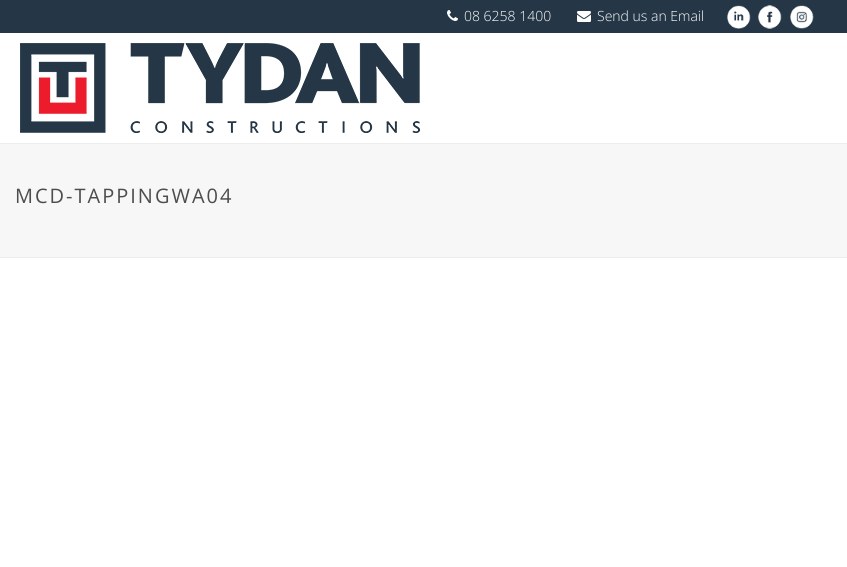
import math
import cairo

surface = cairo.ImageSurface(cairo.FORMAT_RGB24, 847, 567)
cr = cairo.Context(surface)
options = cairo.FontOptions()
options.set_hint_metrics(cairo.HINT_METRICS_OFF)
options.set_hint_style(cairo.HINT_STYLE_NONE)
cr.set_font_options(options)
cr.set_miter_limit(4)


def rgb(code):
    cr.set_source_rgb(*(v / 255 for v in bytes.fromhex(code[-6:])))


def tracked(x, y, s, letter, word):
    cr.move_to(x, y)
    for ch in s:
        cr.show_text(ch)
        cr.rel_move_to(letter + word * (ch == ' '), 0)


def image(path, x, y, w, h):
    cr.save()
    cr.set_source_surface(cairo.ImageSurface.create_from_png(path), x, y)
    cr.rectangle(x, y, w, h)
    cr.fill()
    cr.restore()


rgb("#ffffff")
cr.paint()
rgb("#253746")
cr.rectangle(0, 0, 847, 33)
cr.fill()
image("img/1.png", 447, 10, 11, 11)
image("img/2.png", 577, 11, 14, 11)
image("img/3.png", 727, 5, 24, 24)
image("img/4.png", 758, 5, 24, 24)
image("img/5.png", 790, 5, 24, 24)
for x, y, w, h, color in [
    (0, 144, 847, 113, "#f7f7f7"),
    (0, 257, 847, 1, "#ededed"),
    (0, 143, 847, 1, "#ededed"),
]:
    rgb(color)
    cr.rectangle(x, y, w, h)
    cr.fill()
image("img/6.png", 20, 43, 400, 90)
cr.select_font_face("Open Sans Light")
cr.set_font_size(14)
rgb("#ffffff")
cr.move_to(464, 21)
cr.show_text("08 6258 1400")
cr.move_to(597, 21)
cr.show_text("Send us an Email")
cr.select_font_face("Open Sans")
cr.set_font_size(20)
rgb("#4d4d4d")
tracked(15, 203, "MCD-TAPPINGWA04", 2, 0)
surface.write_to_png("page.png")
